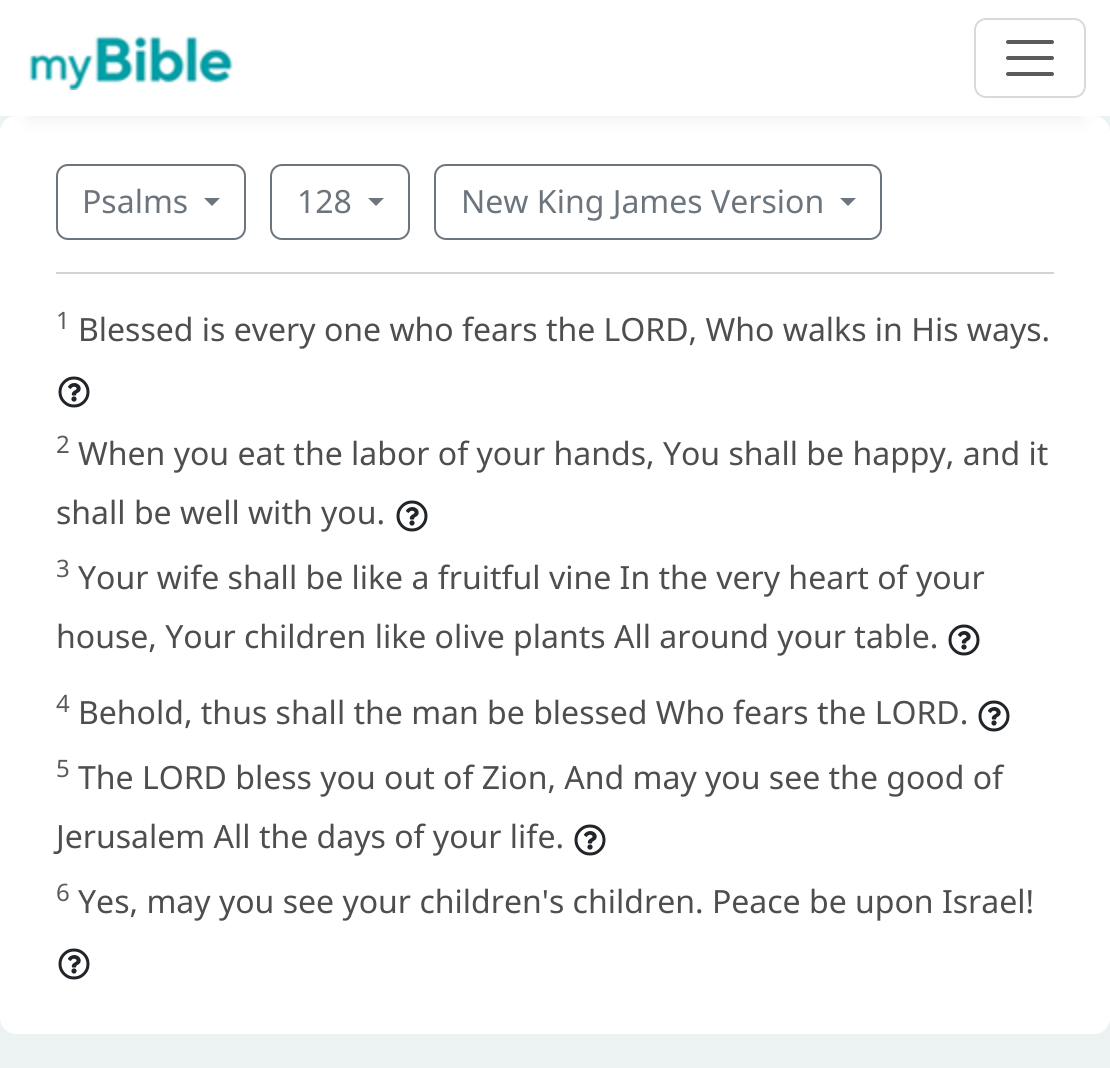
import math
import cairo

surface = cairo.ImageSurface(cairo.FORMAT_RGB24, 1110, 1068)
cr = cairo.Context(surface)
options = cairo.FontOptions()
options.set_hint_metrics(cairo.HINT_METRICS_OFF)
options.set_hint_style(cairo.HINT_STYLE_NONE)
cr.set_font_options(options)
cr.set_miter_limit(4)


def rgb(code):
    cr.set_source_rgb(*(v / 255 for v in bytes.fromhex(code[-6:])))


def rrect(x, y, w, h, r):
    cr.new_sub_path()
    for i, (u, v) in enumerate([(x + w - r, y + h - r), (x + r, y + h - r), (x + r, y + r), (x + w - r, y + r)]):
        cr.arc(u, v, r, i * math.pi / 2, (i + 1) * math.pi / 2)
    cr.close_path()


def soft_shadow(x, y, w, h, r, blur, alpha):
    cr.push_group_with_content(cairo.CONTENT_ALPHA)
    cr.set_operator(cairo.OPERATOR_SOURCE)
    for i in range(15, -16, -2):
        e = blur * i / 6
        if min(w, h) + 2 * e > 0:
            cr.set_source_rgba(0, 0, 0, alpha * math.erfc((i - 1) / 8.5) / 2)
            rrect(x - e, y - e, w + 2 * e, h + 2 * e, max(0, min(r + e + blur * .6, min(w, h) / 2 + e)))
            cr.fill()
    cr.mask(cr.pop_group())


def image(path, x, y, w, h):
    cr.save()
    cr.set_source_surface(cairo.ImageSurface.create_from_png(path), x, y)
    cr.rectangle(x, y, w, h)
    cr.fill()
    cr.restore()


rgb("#ecf1f1")
cr.paint()
rgb("#ffffff")
rrect(0, 116, 1110, 918, 16)
cr.fill()
rgb("#eaeaea")
soft_shadow(30, 60, 1050, 56, 0, 10, 1)
rgb("#ffffff")
cr.rectangle(0, 0, 1110, 116)
cr.fill()
image("img/1.png", 29, 35, 204, 55)
rrect(975, 19, 110, 78, 11)
rgb("#d9d9d9")
cr.stroke()
cr.new_path()
cr.move_to(1008, 42)
cr.line_to(1052, 42)
cr.move_to(1008, 58)
cr.line_to(1052, 58)
cr.move_to(1008, 74)
cr.line_to(1052, 74)
rgb("#595c5f")
cr.set_line_width(4)
cr.set_line_cap(cairo.LINE_CAP_ROUND)
cr.stroke()
rrect(57, 165, 188, 74, 11)
rgb("#6c757d")
cr.set_line_width(2)
cr.set_line_cap(cairo.LINE_CAP_BUTT)
cr.stroke()
cr.new_path()
cr.move_to(204, 198)
cr.line_to(220, 198)
cr.line_to(212, 206)
cr.close_path()
cr.fill()
rrect(271, 165, 138, 74, 11)
cr.stroke()
cr.new_path()
cr.move_to(368, 198)
cr.line_to(384, 198)
cr.line_to(376, 206)
cr.close_path()
cr.fill()
rrect(435, 165, 446, 74, 11)
cr.stroke()
cr.new_path()
cr.move_to(840, 198)
cr.line_to(856, 198)
cr.line_to(848, 206)
cr.close_path()
cr.fill()
rgb("#d3d3d3")
cr.rectangle(56, 272, 998, 2)
cr.fill()
image("img/2.png", 58, 376, 32, 32)
image("img/2.png", 396, 500, 32, 32)
image("img/2.png", 948, 624, 32, 32)
image("img/2.png", 978, 700, 32, 32)
image("img/2.png", 574, 824, 32, 32)
image("img/2.png", 58, 948, 32, 32)
cr.select_font_face("Noto Sans")
cr.set_font_size(32)
rgb("#6c757d")
for x, y, s in [
    (82, 213, "Psalms"),
    (297, 213, "128"),
    (461, 213, "New King James Version"),
]:
    cr.move_to(x, y)
    cr.show_text(s)
cr.set_font_size(24)
rgb("#595c5f")
cr.move_to(56, 329)
cr.show_text("1")
cr.set_font_size(32)
rgb("#4f4e4e")
cr.move_to(78, 341)
cr.show_text("Blessed is every one who fears the LORD, Who walks in His ways.")
cr.set_font_size(24)
rgb("#595c5f")
cr.move_to(56, 453)
cr.show_text("2")
cr.set_font_size(32)
rgb("#4f4e4e")
cr.move_to(78, 465)
cr.show_text("When you eat the labor of your hands, You shall be happy, and it")
cr.move_to(56, 524)
cr.show_text("shall be well with you.")
cr.set_font_size(24)
rgb("#595c5f")
cr.move_to(56, 577)
cr.show_text("3")
cr.set_font_size(32)
rgb("#4f4e4e")
cr.move_to(78, 589)
cr.show_text("Your wife shall be like a fruitful vine In the very heart of your")
cr.move_to(56, 648)
cr.show_text("house, Your children like olive plants All around your table.")
cr.set_font_size(24)
rgb("#595c5f")
cr.move_to(56, 712)
cr.show_text("4")
cr.set_font_size(32)
rgb("#4f4e4e")
cr.move_to(78, 724)
cr.show_text("Behold, thus shall the man be blessed Who fears the LORD.")
cr.set_font_size(24)
rgb("#595c5f")
cr.move_to(56, 777)
cr.show_text("5")
cr.set_font_size(32)
rgb("#4f4e4e")
cr.move_to(78, 789)
cr.show_text("The LORD bless you out of Zion, And may you see the good of")
cr.move_to(56, 848)
cr.show_text("Jerusalem All the days of your life.")
cr.set_font_size(24)
rgb("#595c5f")
cr.move_to(56, 901)
cr.show_text("6")
cr.set_font_size(32)
rgb("#4f4e4e")
cr.move_to(78, 913)
cr.show_text("Yes, may you see your children's children. Peace be upon Israel!")
surface.write_to_png("page.png")
